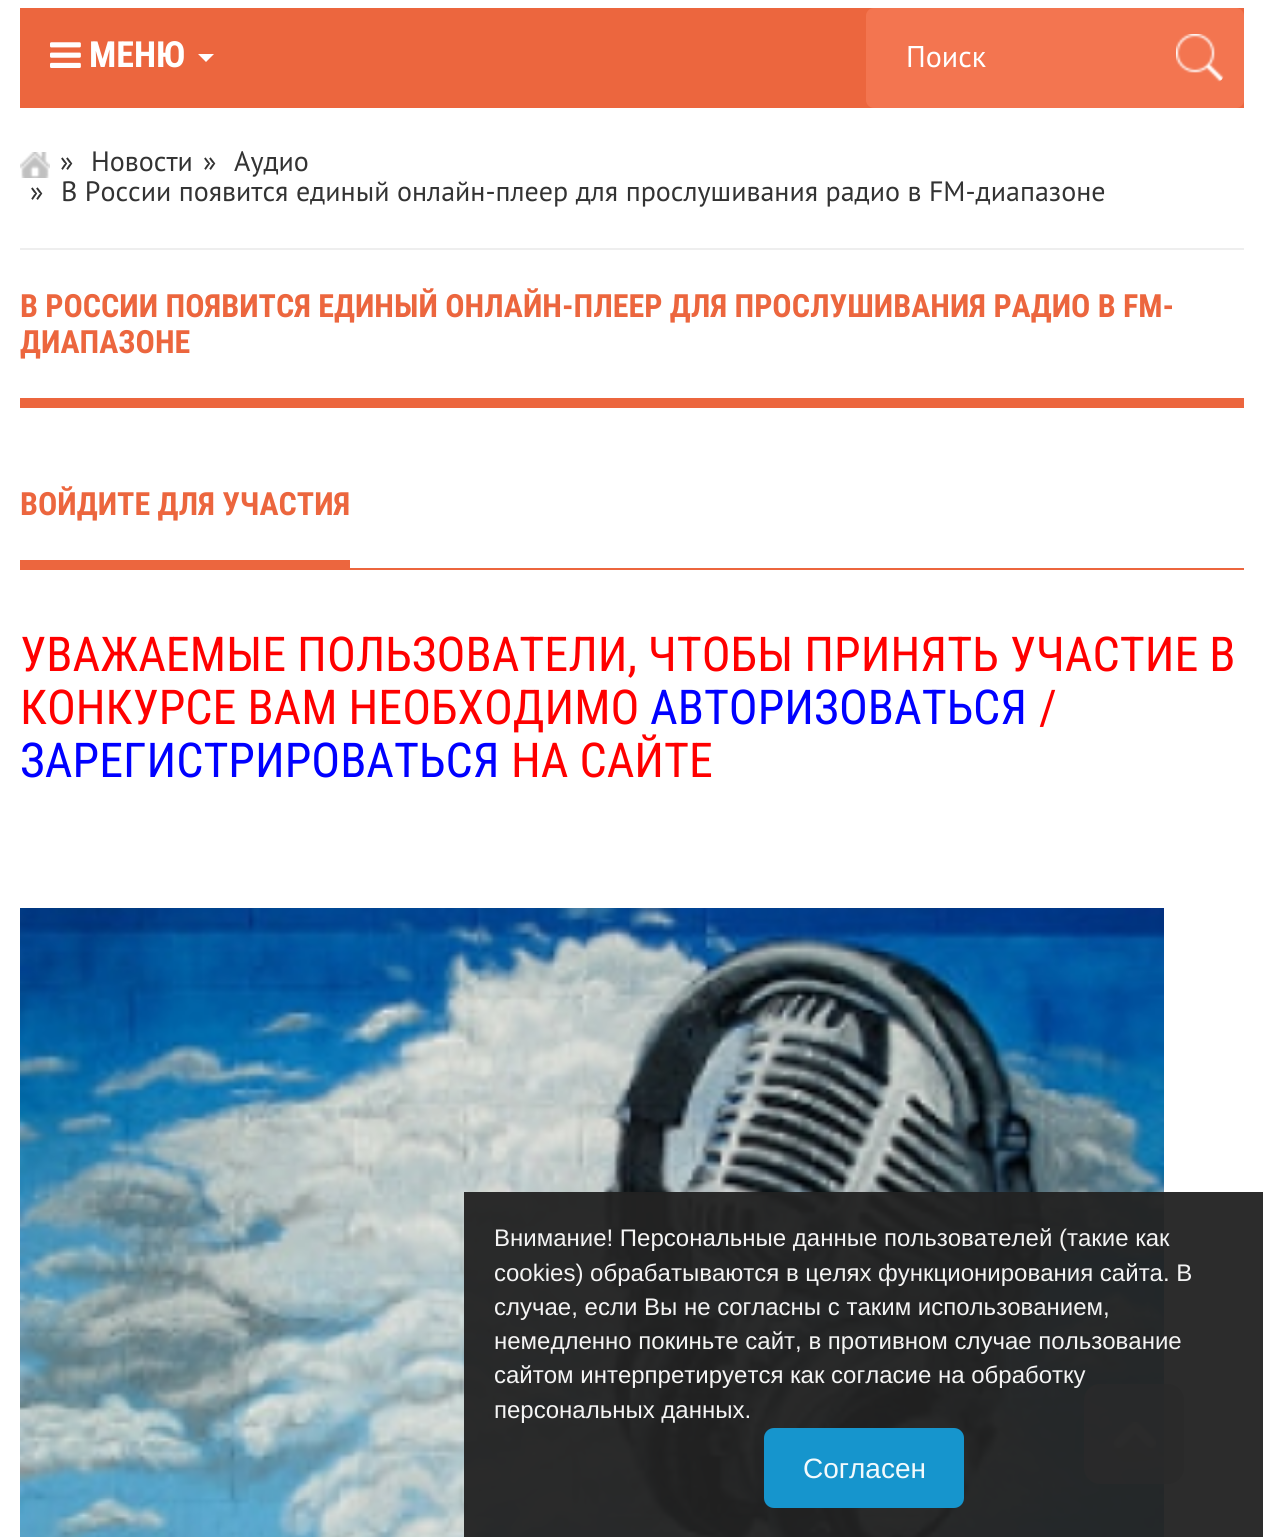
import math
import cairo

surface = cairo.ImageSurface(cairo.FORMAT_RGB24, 1263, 1537)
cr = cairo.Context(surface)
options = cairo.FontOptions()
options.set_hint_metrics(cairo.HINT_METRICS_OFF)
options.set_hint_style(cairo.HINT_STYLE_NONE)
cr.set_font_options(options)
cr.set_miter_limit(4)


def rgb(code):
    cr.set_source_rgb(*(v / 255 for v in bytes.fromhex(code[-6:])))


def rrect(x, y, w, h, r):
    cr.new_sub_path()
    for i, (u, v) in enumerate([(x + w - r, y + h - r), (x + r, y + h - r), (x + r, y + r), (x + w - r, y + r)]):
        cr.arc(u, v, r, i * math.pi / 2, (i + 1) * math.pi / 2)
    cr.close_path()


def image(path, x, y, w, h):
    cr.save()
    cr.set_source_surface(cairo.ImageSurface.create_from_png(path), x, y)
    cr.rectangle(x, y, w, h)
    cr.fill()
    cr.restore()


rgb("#ffffff")
cr.paint()
rgb("#ec663e")
cr.rectangle(20, 8, 1224, 100)
cr.fill()
image("img/1.png", 50, 42, 31, 26)
rgb("#ffffff")
cr.new_path()
cr.move_to(198, 54)
cr.line_to(214, 54)
cr.line_to(206, 62)
cr.close_path()
cr.fill()
rgb("#f37550")
rrect(866, 8, 378, 100, 8)
cr.fill()
image("img/2.png", 1176, 34, 48, 48)
image("img/3.png", 20, 152, 30, 26)
for x, y, w, h, color in [
    (20, 248, 1224, 2, "#eeeeee"),
    (20, 398, 1224, 10, "#ec663e"),
    (20, 568, 1224, 2, "#ec663e"),
    (20, 560, 330, 8, "#ec663e"),
]:
    rgb(color)
    cr.rectangle(x, y, w, h)
    cr.fill()
image("img/4.png", 20, 908, 1144, 629)
cr.set_source_rgba(0.8, 0.8, 0.8, 0.8)
rrect(1084, 1384, 100, 100, 16)
cr.fill()
image("img/5.png", 1114, 1422, 42, 26)
cr.set_source_rgba(0.133, 0.133, 0.133, 0.95)
cr.rectangle(464, 1192, 799, 345)
cr.fill()
cr.set_source_rgba(0.086, 0.608, 0.835, 0.95)
rrect(764, 1428, 200, 80, 10)
cr.fill()
cr.select_font_face("Roboto Condensed", cairo.FONT_SLANT_NORMAL, cairo.FONT_WEIGHT_BOLD)
cr.set_font_size(36)
rgb("#ffffff")
cr.move_to(89, 67)
cr.show_text("МЕНЮ")
cr.select_font_face("PT Sans")
cr.set_font_size(30)
cr.move_to(906, 67)
cr.show_text("Поиск")
cr.set_font_size(28)
rgb("#333333")
for x, y, s in [
    (60, 171, "»"),
    (91, 171, "Новости"),
    (203, 171, "»"),
    (234, 171, "Аудио"),
    (30, 201, "»"),
    (61, 201, "В России появится единый онлайн-плеер для прослушивания радио в FM-диапазоне"),
]:
    cr.move_to(x, y)
    cr.show_text(s)
cr.select_font_face("Roboto Condensed", cairo.FONT_SLANT_NORMAL, cairo.FONT_WEIGHT_BOLD)
cr.set_font_size(32)
rgb("#ec663e")
for x, y, s in [
    (20, 317, "В РОССИИ ПОЯВИТСЯ ЕДИНЫЙ ОНЛАЙН-ПЛЕЕР ДЛЯ ПРОСЛУШИВАНИЯ РАДИО В FM-"),
    (20, 353, "ДИАПАЗОНЕ"),
    (20, 515, "ВОЙДИТЕ ДЛЯ УЧАСТИЯ"),
]:
    cr.move_to(x, y)
    cr.show_text(s)
cr.select_font_face("Roboto Condensed")
cr.set_font_size(48)
rgb("#ff0000")
cr.move_to(20, 671)
cr.show_text("УВАЖАЕМЫЕ ПОЛЬЗОВАТЕЛИ, ЧТОБЫ ПРИНЯТЬ УЧАСТИЕ В")
cr.move_to(20, 724)
cr.show_text("КОНКУРСЕ ВАМ НЕОБХОДИМО")
rgb("#0000ff")
cr.move_to(650, 724)
cr.show_text("АВТОРИЗОВАТЬСЯ")
rgb("#ff0000")
cr.move_to(1039, 724)
cr.show_text("/")
rgb("#0000ff")
cr.move_to(20, 777)
cr.show_text("ЗАРЕГИСТРИРОВАТЬСЯ")
rgb("#ff0000")
cr.move_to(511, 777)
cr.show_text("НА САЙТЕ")
cr.select_font_face("Liberation Sans")
cr.set_font_size(24)
rgb("#f4f4f4")
for x, y, s in [
    (494, 1246, "Внимание! Персональные данные пользователей (такие как"),
    (494, 1281, "cookies) обрабатываются в целях функционирования сайта. В"),
    (494, 1315, "случае, если Вы не согласны с таким использованием,"),
    (494, 1349, "немедленно покиньте сайт, в противном случае пользование"),
    (494, 1383, "сайтом интерпретируется как согласие на обработку"),
    (494, 1418, "персональных данных."),
]:
    cr.move_to(x, y)
    cr.show_text(s)
cr.set_font_size(28)
rgb("#f3fafc")
cr.move_to(803, 1478)
cr.show_text("Согласен")
surface.write_to_png("page.png")
